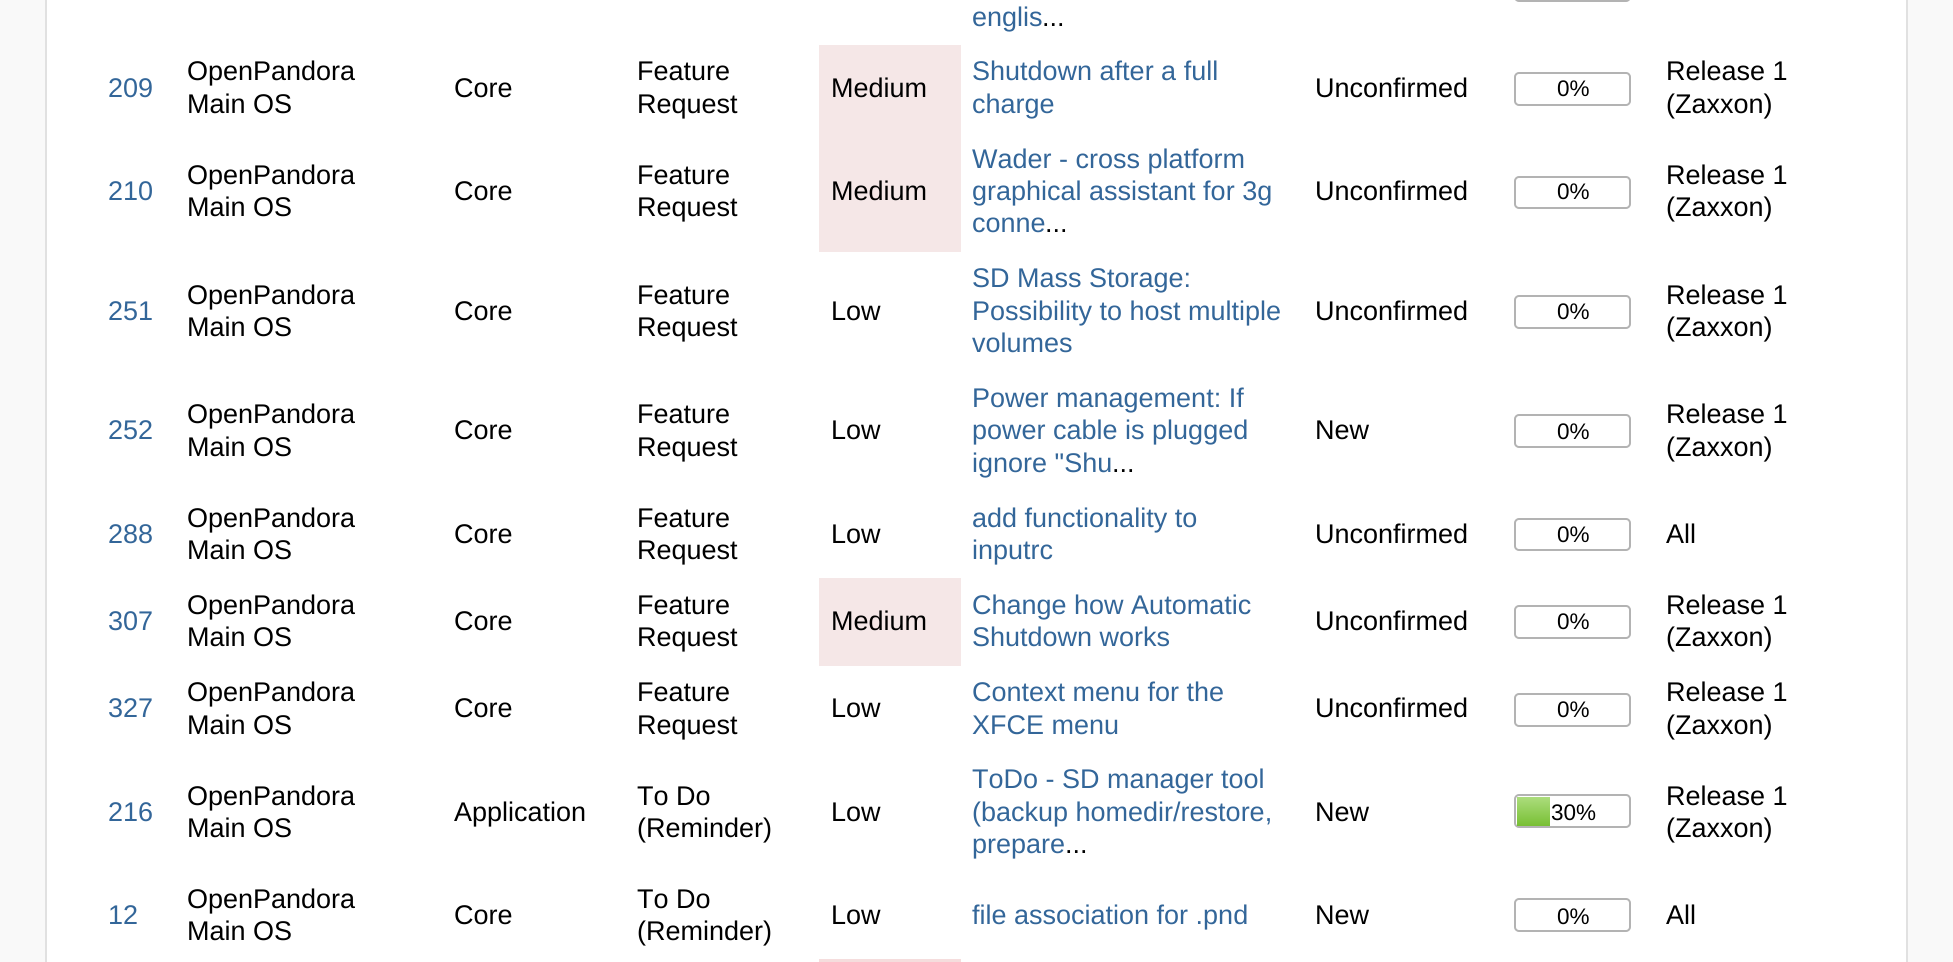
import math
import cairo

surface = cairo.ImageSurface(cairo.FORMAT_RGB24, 1953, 962)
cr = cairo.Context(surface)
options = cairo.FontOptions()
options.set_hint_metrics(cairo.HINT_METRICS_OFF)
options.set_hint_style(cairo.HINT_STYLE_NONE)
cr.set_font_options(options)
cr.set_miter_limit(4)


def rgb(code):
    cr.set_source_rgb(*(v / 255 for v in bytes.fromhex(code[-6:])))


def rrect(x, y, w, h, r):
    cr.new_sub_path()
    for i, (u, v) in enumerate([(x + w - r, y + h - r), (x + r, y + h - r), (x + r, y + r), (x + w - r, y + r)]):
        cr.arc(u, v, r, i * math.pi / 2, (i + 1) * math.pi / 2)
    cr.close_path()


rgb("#f9f9f9")
cr.paint()
rgb("#ffffff")
cr.rectangle(46, -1, 1861, 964)
cr.fill_preserve()
rgb("#e1e1e1")
cr.stroke()
rrect(1515, -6, 115, 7, 4)
rgb("#b3b3b3")
cr.stroke()
rgb("#f5e7e7")
cr.rectangle(819, 45, 142, 207)
cr.fill()
rrect(1515, 73, 115, 32, 4)
rgb("#b3b3b3")
cr.stroke()
rrect(1515, 177, 115, 31, 4)
cr.stroke()
rrect(1515, 296, 115, 32, 4)
cr.stroke()
rrect(1515, 415, 115, 32, 4)
cr.stroke()
rrect(1515, 519, 115, 31, 4)
cr.stroke()
rgb("#f5e7e7")
cr.rectangle(819, 578, 142, 88)
cr.fill()
rrect(1515, 606, 115, 32, 4)
rgb("#b3b3b3")
cr.stroke()
rrect(1515, 694, 115, 32, 4)
cr.stroke()
rrect(1515, 795, 115, 32, 4)
cr.stroke()
gradient = cairo.LinearGradient(1533, 797, 1533, 826)
gradient.add_color_stop_rgba(0, 0.675, 0.863, 0.49, 1)
gradient.add_color_stop_rgba(1, 0.471, 0.749, 0.204, 1)
cr.set_source(gradient)
cr.rectangle(1517, 797, 33, 29)
cr.fill()
rrect(1515, 899, 115, 32, 4)
rgb("#b3b3b3")
cr.stroke()
rgb("#f5dddd")
cr.rectangle(819, 959, 142, 3)
cr.fill()
cr.select_font_face("Liberation Sans")
cr.set_font_size(27)
rgb("#336699")
cr.move_to(972, 26)
cr.show_text("englis")
rgb("#000000")
cr.move_to(1042, 26)
cr.show_text("...")
rgb("#336699")
cr.move_to(108, 97)
cr.show_text("209")
rgb("#000000")
for x, y, s in [
    (187, 80, "OpenPandora"),
    (187, 113, "Main OS"),
    (454, 97, "Core"),
    (637, 80, "Feature"),
    (637, 113, "Request"),
    (831, 97, "Medium"),
]:
    cr.move_to(x, y)
    cr.show_text(s)
rgb("#336699")
cr.move_to(972, 80)
cr.show_text("Shutdown after a full")
cr.move_to(972, 113)
cr.show_text("charge")
rgb("#000000")
cr.move_to(1315, 97)
cr.show_text("Unconfirmed")
cr.set_font_size(22.5)
cr.move_to(1557, 96)
cr.show_text("0%")
cr.set_font_size(27)
cr.move_to(1666, 80)
cr.show_text("Release 1")
cr.move_to(1666, 113)
cr.show_text("(Zaxxon)")
rgb("#336699")
cr.move_to(108, 200)
cr.show_text("210")
rgb("#000000")
for x, y, s in [
    (187, 184, "OpenPandora"),
    (187, 216, "Main OS"),
    (454, 200, "Core"),
    (637, 184, "Feature"),
    (637, 216, "Request"),
    (831, 200, "Medium"),
]:
    cr.move_to(x, y)
    cr.show_text(s)
rgb("#336699")
for x, y, s in [
    (972, 168, "Wader - cross platform"),
    (972, 200, "graphical assistant for 3g"),
    (972, 232, "conne"),
]:
    cr.move_to(x, y)
    cr.show_text(s)
rgb("#000000")
cr.move_to(1045, 232)
cr.show_text("...")
cr.move_to(1315, 200)
cr.show_text("Unconfirmed")
cr.set_font_size(22.5)
cr.move_to(1557, 199)
cr.show_text("0%")
cr.set_font_size(27)
cr.move_to(1666, 184)
cr.show_text("Release 1")
cr.move_to(1666, 216)
cr.show_text("(Zaxxon)")
rgb("#336699")
cr.move_to(108, 320)
cr.show_text("251")
rgb("#000000")
for x, y, s in [
    (187, 304, "OpenPandora"),
    (187, 336, "Main OS"),
    (454, 320, "Core"),
    (637, 304, "Feature"),
    (637, 336, "Request"),
    (831, 320, "Low"),
]:
    cr.move_to(x, y)
    cr.show_text(s)
rgb("#336699")
for x, y, s in [
    (972, 287, "SD Mass Storage:"),
    (972, 320, "Possibility to host multiple"),
    (972, 352, "volumes"),
]:
    cr.move_to(x, y)
    cr.show_text(s)
rgb("#000000")
cr.move_to(1315, 320)
cr.show_text("Unconfirmed")
cr.set_font_size(22.5)
cr.move_to(1557, 319)
cr.show_text("0%")
cr.set_font_size(27)
cr.move_to(1666, 304)
cr.show_text("Release 1")
cr.move_to(1666, 336)
cr.show_text("(Zaxxon)")
rgb("#336699")
cr.move_to(108, 439)
cr.show_text("252")
rgb("#000000")
for x, y, s in [
    (187, 423, "OpenPandora"),
    (187, 456, "Main OS"),
    (454, 439, "Core"),
    (637, 423, "Feature"),
    (637, 456, "Request"),
    (831, 439, "Low"),
]:
    cr.move_to(x, y)
    cr.show_text(s)
rgb("#336699")
for x, y, s in [
    (972, 407, "Power management: If"),
    (972, 439, "power cable is plugged"),
    (972, 472, "ignore \"Shu"),
]:
    cr.move_to(x, y)
    cr.show_text(s)
rgb("#000000")
cr.move_to(1112, 472)
cr.show_text("...")
cr.move_to(1315, 439)
cr.show_text("New")
cr.set_font_size(22.5)
cr.move_to(1557, 439)
cr.show_text("0%")
cr.set_font_size(27)
cr.move_to(1666, 423)
cr.show_text("Release 1")
cr.move_to(1666, 456)
cr.show_text("(Zaxxon)")
rgb("#336699")
cr.move_to(108, 543)
cr.show_text("288")
rgb("#000000")
for x, y, s in [
    (187, 527, "OpenPandora"),
    (187, 559, "Main OS"),
    (454, 543, "Core"),
    (637, 527, "Feature"),
    (637, 559, "Request"),
    (831, 543, "Low"),
]:
    cr.move_to(x, y)
    cr.show_text(s)
rgb("#336699")
cr.move_to(972, 527)
cr.show_text("add functionality to")
cr.move_to(972, 559)
cr.show_text("inputrc")
rgb("#000000")
cr.move_to(1315, 543)
cr.show_text("Unconfirmed")
cr.set_font_size(22.5)
cr.move_to(1557, 542)
cr.show_text("0%")
cr.set_font_size(27)
cr.move_to(1666, 543)
cr.show_text("All")
rgb("#336699")
cr.move_to(108, 630)
cr.show_text("307")
rgb("#000000")
for x, y, s in [
    (187, 614, "OpenPandora"),
    (187, 646, "Main OS"),
    (454, 630, "Core"),
    (637, 614, "Feature"),
    (637, 646, "Request"),
    (831, 630, "Medium"),
]:
    cr.move_to(x, y)
    cr.show_text(s)
rgb("#336699")
cr.move_to(972, 614)
cr.show_text("Change how Automatic")
cr.move_to(972, 646)
cr.show_text("Shutdown works")
rgb("#000000")
cr.move_to(1315, 630)
cr.show_text("Unconfirmed")
cr.set_font_size(22.5)
cr.move_to(1557, 629)
cr.show_text("0%")
cr.set_font_size(27)
cr.move_to(1666, 614)
cr.show_text("Release 1")
cr.move_to(1666, 646)
cr.show_text("(Zaxxon)")
rgb("#336699")
cr.move_to(108, 717)
cr.show_text("327")
rgb("#000000")
for x, y, s in [
    (187, 701, "OpenPandora"),
    (187, 734, "Main OS"),
    (454, 717, "Core"),
    (637, 701, "Feature"),
    (637, 734, "Request"),
    (831, 717, "Low"),
]:
    cr.move_to(x, y)
    cr.show_text(s)
rgb("#336699")
cr.move_to(972, 701)
cr.show_text("Context menu for the")
cr.move_to(972, 734)
cr.show_text("XFCE menu")
rgb("#000000")
cr.move_to(1315, 717)
cr.show_text("Unconfirmed")
cr.set_font_size(22.5)
cr.move_to(1557, 717)
cr.show_text("0%")
cr.set_font_size(27)
cr.move_to(1666, 701)
cr.show_text("Release 1")
cr.move_to(1666, 734)
cr.show_text("(Zaxxon)")
rgb("#336699")
cr.move_to(108, 821)
cr.show_text("216")
rgb("#000000")
for x, y, s in [
    (187, 805, "OpenPandora"),
    (187, 837, "Main OS"),
    (454, 821, "Application"),
    (637, 805, "To Do"),
    (637, 837, "(Reminder)"),
    (831, 821, "Low"),
]:
    cr.move_to(x, y)
    cr.show_text(s)
rgb("#336699")
for x, y, s in [
    (972, 788, "ToDo - SD manager tool"),
    (972, 821, "(backup homedir/restore,"),
    (972, 853, "prepare"),
]:
    cr.move_to(x, y)
    cr.show_text(s)
rgb("#000000")
cr.move_to(1065, 853)
cr.show_text("...")
cr.move_to(1315, 821)
cr.show_text("New")
cr.set_font_size(22.5)
cr.move_to(1551, 820)
cr.show_text("30%")
cr.set_font_size(27)
cr.move_to(1666, 805)
cr.show_text("Release 1")
cr.move_to(1666, 837)
cr.show_text("(Zaxxon)")
rgb("#336699")
cr.move_to(108, 924)
cr.show_text("12")
rgb("#000000")
for x, y, s in [
    (187, 908, "OpenPandora"),
    (187, 940, "Main OS"),
    (454, 924, "Core"),
    (637, 908, "To Do"),
    (637, 940, "(Reminder)"),
    (831, 924, "Low"),
]:
    cr.move_to(x, y)
    cr.show_text(s)
rgb("#336699")
cr.move_to(972, 924)
cr.show_text("file association for .pnd")
rgb("#000000")
cr.move_to(1315, 924)
cr.show_text("New")
cr.set_font_size(22.5)
cr.move_to(1557, 924)
cr.show_text("0%")
cr.set_font_size(27)
cr.move_to(1666, 924)
cr.show_text("All")
surface.write_to_png("page.png")
